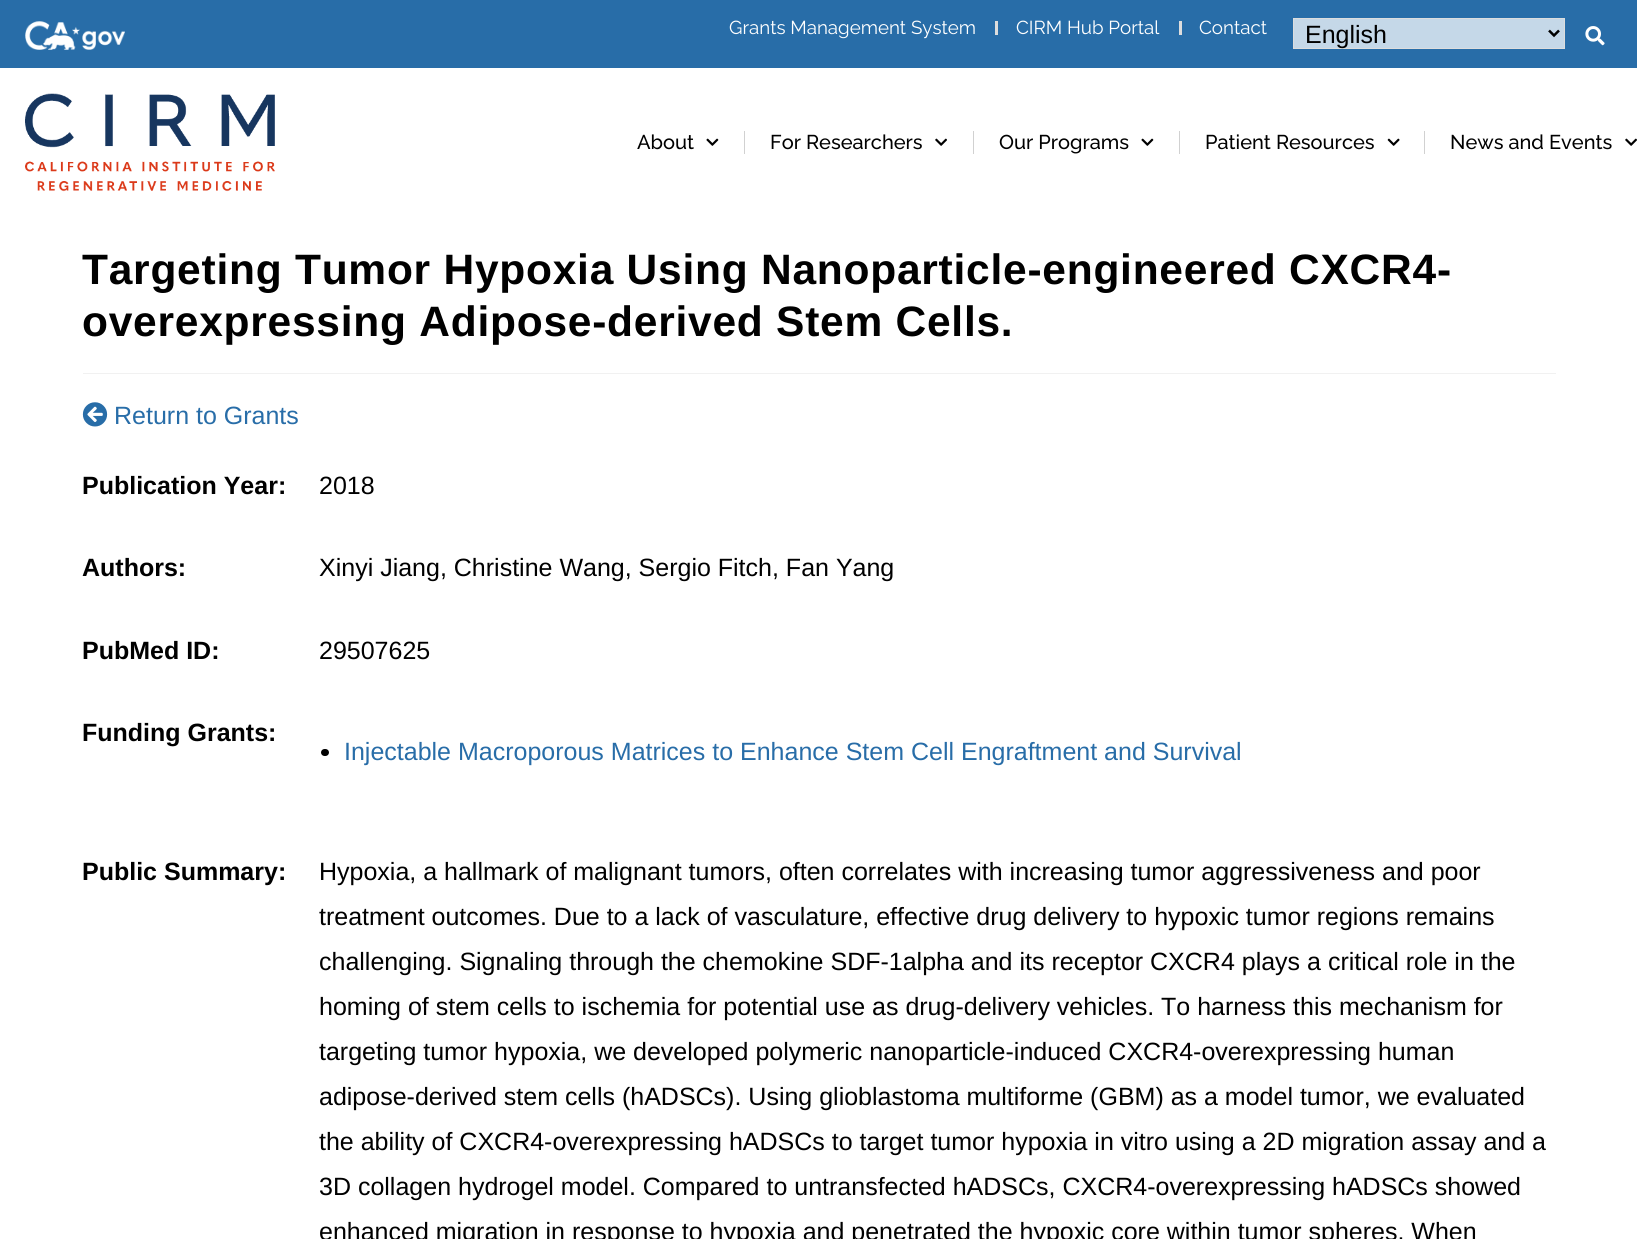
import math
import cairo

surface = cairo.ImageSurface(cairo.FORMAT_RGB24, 1637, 1239)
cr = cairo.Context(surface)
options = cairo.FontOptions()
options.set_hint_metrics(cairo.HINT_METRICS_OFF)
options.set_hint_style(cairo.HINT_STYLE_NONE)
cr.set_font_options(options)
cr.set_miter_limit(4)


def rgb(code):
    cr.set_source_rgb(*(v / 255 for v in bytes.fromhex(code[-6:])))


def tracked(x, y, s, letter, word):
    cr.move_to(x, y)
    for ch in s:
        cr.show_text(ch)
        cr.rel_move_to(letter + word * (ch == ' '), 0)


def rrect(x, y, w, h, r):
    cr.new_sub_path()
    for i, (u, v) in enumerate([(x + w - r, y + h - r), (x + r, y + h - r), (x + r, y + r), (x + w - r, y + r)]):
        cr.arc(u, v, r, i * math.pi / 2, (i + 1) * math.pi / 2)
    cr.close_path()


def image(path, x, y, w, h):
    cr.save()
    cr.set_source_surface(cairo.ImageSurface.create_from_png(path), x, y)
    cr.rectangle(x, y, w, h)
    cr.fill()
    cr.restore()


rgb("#ffffff")
cr.paint()
rgb("#286da8")
cr.rectangle(0, 0, 1637, 68)
cr.fill()
image("img/1.png", 25, 21, 100, 29)
rgb("#dddddd")
cr.rectangle(995, 21, 3, 14)
cr.fill()
cr.rectangle(1179, 21, 3, 14)
cr.fill()
rgb("#c5d8e8")
cr.rectangle(1293.5, 18.5, 271, 30)
cr.fill_preserve()
rgb("#dddddd")
cr.set_line_width(1)
cr.stroke()
cr.new_path()
cr.move_to(1549, 30.5)
cr.line_to(1554, 35.5)
cr.line_to(1559, 30.5)
rgb("#000000")
cr.set_line_width(2.5)
cr.stroke()
image("img/2.png", 1585, 26, 20, 20)
image("img/3.png", 25, 93, 250, 99)
image("img/4.png", 706, 138, 13, 8)
rgb("#d1d1d1")
cr.rectangle(744, 131, 1, 23)
cr.fill()
image("img/5.png", 935, 138, 12, 8)
cr.rectangle(973, 131, 1, 23)
cr.fill()
image("img/4.png", 1141, 138, 13, 8)
cr.rectangle(1179, 131, 1, 23)
cr.fill()
image("img/6.png", 1387, 138, 13, 8)
cr.rectangle(1424, 131, 1, 23)
cr.fill()
image("img/5.png", 1625, 138, 12, 8)
rgb("#f1f1f1")
cr.rectangle(83, 373, 1473, 1)
cr.fill()
image("img/7.png", 82, 402, 26, 25)
rgb("#000000")
rrect(321, 749, 8, 7, 3.5)
cr.fill()
cr.select_font_face("Raleway")
cr.set_font_size(18.75)
rgb("#ffffff")
for x, y, s in [
    (729, 34, "Grants Management System"),
    (1016, 34, "CIRM Hub Portal"),
    (1199, 34, "Contact"),
]:
    cr.move_to(x, y)
    cr.show_text(s)
cr.select_font_face("Liberation Sans")
cr.set_font_size(25)
rgb("#000000")
cr.move_to(1305, 43)
cr.show_text("English")
cr.select_font_face("Raleway Medium")
cr.set_font_size(20)
for x, y, s in [
    (637, 149, "About"),
    (770, 149, "For Researchers"),
    (999, 149, "Our Programs"),
    (1205, 149, "Patient Resources"),
    (1450, 149, "News and Events"),
]:
    cr.move_to(x, y)
    cr.show_text(s)
cr.select_font_face("Liberation Sans", cairo.FONT_SLANT_NORMAL, cairo.FONT_WEIGHT_BOLD)
cr.set_font_size(42.5)
tracked(82, 284, "Targeting Tumor Hypoxia Using Nanoparticle-engineered CXCR4-", 0.75, 0)
tracked(82, 336, "overexpressing Adipose-derived Stem Cells.", 0.75, 0)
cr.select_font_face("Liberation Sans")
cr.set_font_size(25)
rgb("#286da8")
cr.move_to(114, 424)
cr.show_text("Return to Grants")
cr.select_font_face("Liberation Sans", cairo.FONT_SLANT_NORMAL, cairo.FONT_WEIGHT_BOLD)
rgb("#000000")
cr.move_to(82, 494)
cr.show_text("Publication Year:")
cr.select_font_face("Liberation Sans")
cr.move_to(319, 494)
cr.show_text("2018")
cr.select_font_face("Liberation Sans", cairo.FONT_SLANT_NORMAL, cairo.FONT_WEIGHT_BOLD)
cr.move_to(82, 576)
cr.show_text("Authors:")
cr.select_font_face("Liberation Sans")
cr.move_to(319, 576)
cr.show_text("Xinyi Jiang, Christine Wang, Sergio Fitch, Fan Yang")
cr.select_font_face("Liberation Sans", cairo.FONT_SLANT_NORMAL, cairo.FONT_WEIGHT_BOLD)
cr.move_to(82, 659)
cr.show_text("PubMed ID:")
cr.select_font_face("Liberation Sans")
cr.move_to(319, 659)
cr.show_text("29507625")
cr.select_font_face("Liberation Sans", cairo.FONT_SLANT_NORMAL, cairo.FONT_WEIGHT_BOLD)
cr.move_to(82, 741)
cr.show_text("Funding Grants:")
cr.select_font_face("Liberation Sans")
rgb("#286da8")
cr.move_to(344, 760)
cr.show_text("Injectable Macroporous Matrices to Enhance Stem Cell Engraftment and Survival")
cr.select_font_face("Liberation Sans", cairo.FONT_SLANT_NORMAL, cairo.FONT_WEIGHT_BOLD)
rgb("#000000")
cr.move_to(82, 880)
cr.show_text("Public Summary:")
cr.select_font_face("Liberation Sans")
for x, y, s in [
    (319, 880, "Hypoxia, a hallmark of malignant tumors, often correlates with increasing tumor aggressiveness and poor"),
    (319, 925, "treatment outcomes. Due to a lack of vasculature, effective drug delivery to hypoxic tumor regions remains"),
    (319, 970, "challenging. Signaling through the chemokine SDF-1alpha and its receptor CXCR4 plays a critical role in the"),
    (319, 1015, "homing of stem cells to ischemia for potential use as drug-delivery vehicles. To harness this mechanism for"),
    (319, 1060, "targeting tumor hypoxia, we developed polymeric nanoparticle-induced CXCR4-overexpressing human"),
    (319, 1105, "adipose-derived stem cells (hADSCs). Using glioblastoma multiforme (GBM) as a model tumor, we evaluated"),
    (319, 1150, "the ability of CXCR4-overexpressing hADSCs to target tumor hypoxia in vitro using a 2D migration assay and a"),
    (319, 1195, "3D collagen hydrogel model. Compared to untransfected hADSCs, CXCR4-overexpressing hADSCs showed"),
    (319, 1240, "enhanced migration in response to hypoxia and penetrated the hypoxic core within tumor spheres. When"),
]:
    cr.move_to(x, y)
    cr.show_text(s)
surface.write_to_png("page.png")
